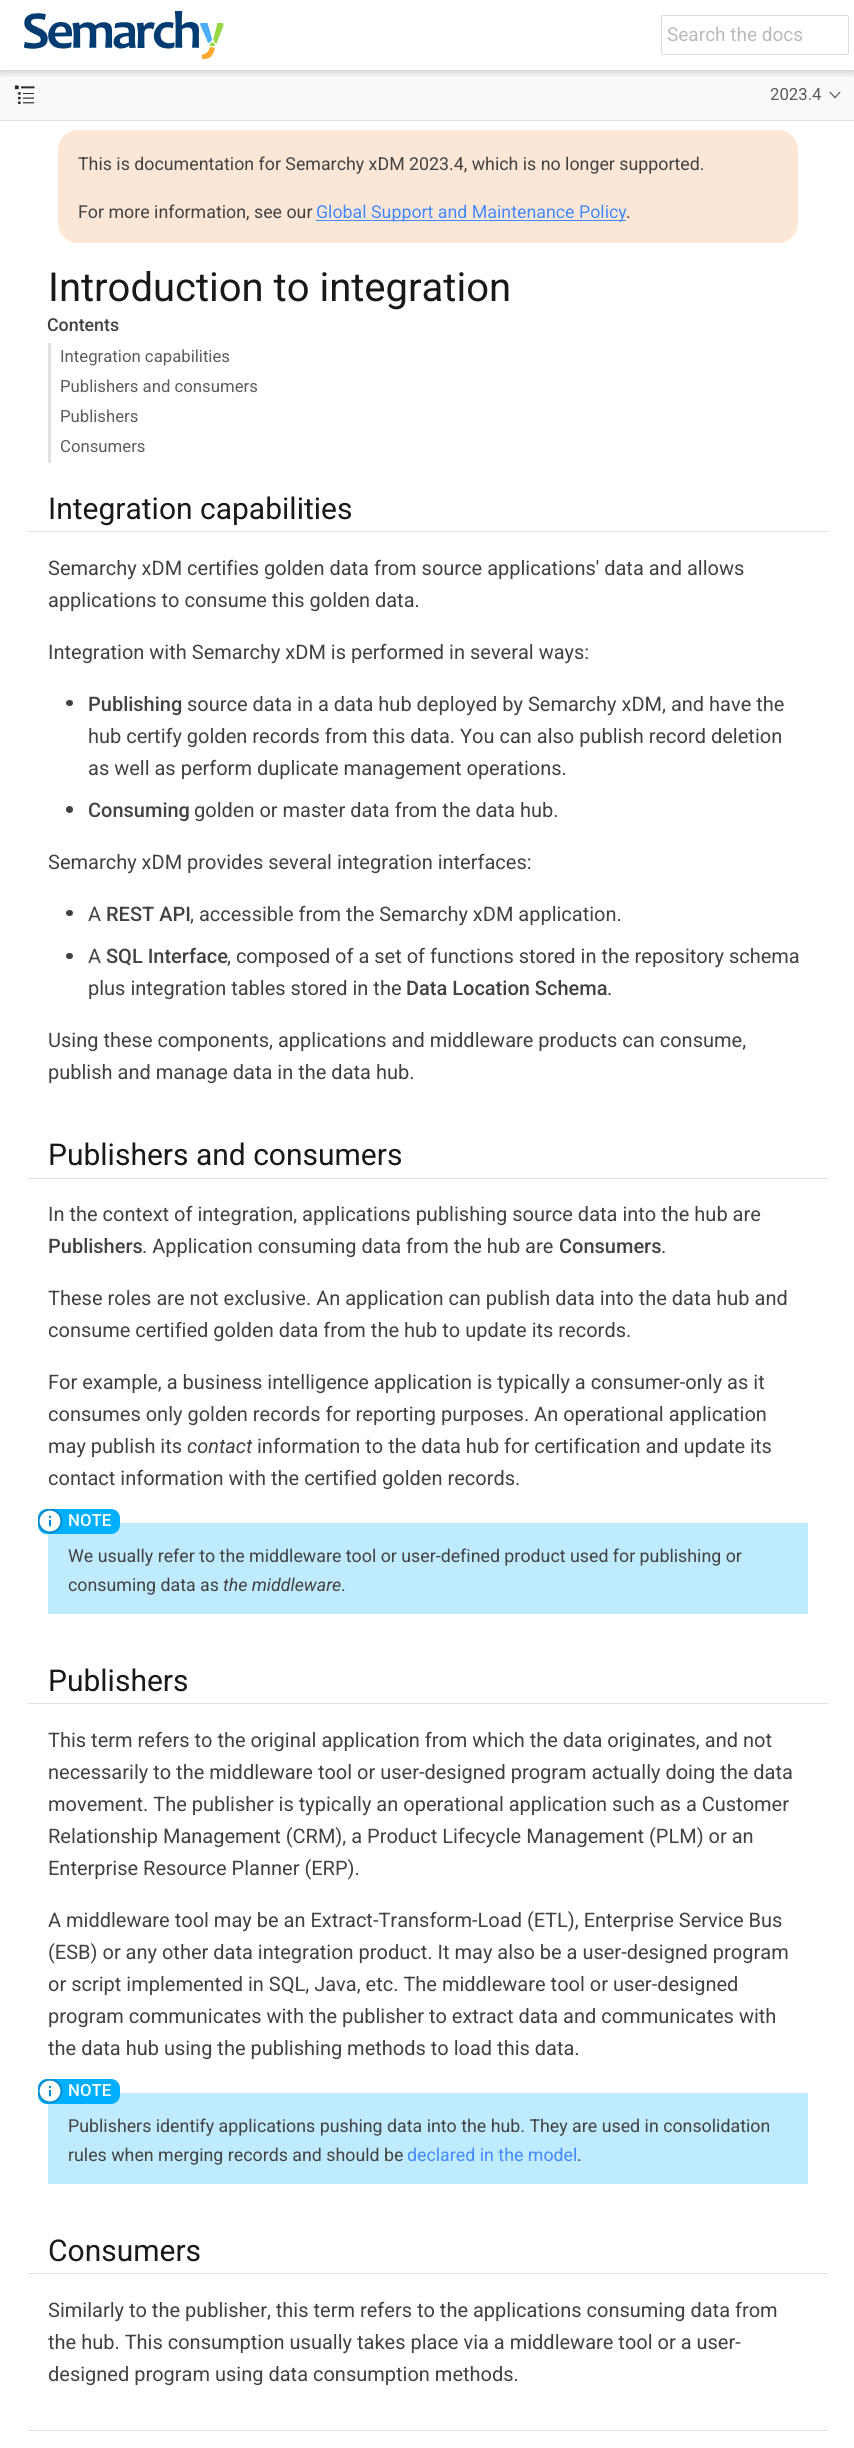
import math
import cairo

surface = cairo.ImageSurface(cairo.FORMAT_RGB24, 854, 2448)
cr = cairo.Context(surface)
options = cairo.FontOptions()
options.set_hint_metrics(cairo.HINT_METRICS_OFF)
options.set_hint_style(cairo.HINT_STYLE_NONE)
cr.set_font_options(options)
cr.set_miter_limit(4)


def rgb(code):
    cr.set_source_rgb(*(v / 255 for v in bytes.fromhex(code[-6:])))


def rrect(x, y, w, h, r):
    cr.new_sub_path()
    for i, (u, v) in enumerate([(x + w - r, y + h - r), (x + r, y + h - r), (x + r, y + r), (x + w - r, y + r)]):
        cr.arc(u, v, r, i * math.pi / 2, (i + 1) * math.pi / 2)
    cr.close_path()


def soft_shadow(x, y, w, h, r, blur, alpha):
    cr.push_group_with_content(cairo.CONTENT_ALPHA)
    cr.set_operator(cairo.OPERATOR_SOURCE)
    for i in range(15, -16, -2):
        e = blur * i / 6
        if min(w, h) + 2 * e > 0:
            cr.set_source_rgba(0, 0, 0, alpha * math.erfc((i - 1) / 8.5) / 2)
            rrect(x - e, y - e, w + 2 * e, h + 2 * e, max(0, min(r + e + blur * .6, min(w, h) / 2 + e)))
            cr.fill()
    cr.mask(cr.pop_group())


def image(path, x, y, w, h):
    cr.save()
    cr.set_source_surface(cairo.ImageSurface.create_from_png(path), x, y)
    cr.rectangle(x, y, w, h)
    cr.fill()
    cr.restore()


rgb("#ffffff")
cr.paint()
rgb("#fafafa")
cr.rectangle(0, 70, 854, 50)
cr.fill()
image("img/2.png", 14, 85, 21, 19)
cr.save()
cr.rectangle(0, 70, 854, 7)
cr.clip()
rgb("#000000")
soft_shadow(0, 0, 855, 70, 0, 5, 0.3)
cr.restore()
image("img/1.png", 23, 10, 201, 50)
rrect(661.5, 15.5, 187, 39, 1.5)
rgb("#dbdbdb")
cr.set_line_width(1)
cr.stroke()
rgb("#e1e1e1")
cr.rectangle(0, 120, 854, 1)
cr.fill()
image("img/3.png", 829, 91, 12, 8)
rgb("#fce7d6")
rrect(58, 130, 740, 113, 20)
cr.fill()
for x, y, w, h, color in [
    (316, 220, 310, 1, "#448aff"),
    (48, 343, 3, 120, "#e1e1e1"),
    (28, 531, 800, 1, "#e1e1e1"),
]:
    rgb(color)
    cr.rectangle(x, y, w, h)
    cr.fill()
rgb("#424242")
rrect(66, 700, 7, 6, 3)
cr.fill()
cr.arc(69.5, 809.5, 3.5, 0, 2 * math.pi)
cr.fill()
rrect(66, 910, 7, 6, 3)
cr.fill()
rrect(66, 953, 7, 6, 3)
cr.fill()
rgb("#e1e1e1")
cr.rectangle(28, 1178, 800, 1)
cr.fill()
rgb("#bfebff")
cr.rectangle(48, 1523, 760, 91)
cr.fill()
rgb("#00b0ff")
rrect(38, 1509, 82, 25, 9)
cr.fill()
image("img/4.png", 38, 1509, 25, 25)
rgb("#e1e1e1")
cr.rectangle(28, 1703, 800, 1)
cr.fill()
rgb("#bfebff")
cr.rectangle(48, 2093, 760, 91)
cr.fill()
rgb("#00b0ff")
rrect(38, 2079, 82, 25, 9)
cr.fill()
image("img/4.png", 38, 2079, 25, 25)
rgb("#e1e1e1")
cr.rectangle(28, 2273, 800, 1)
cr.fill()
cr.rectangle(28, 2430, 800, 1)
cr.fill()
cr.select_font_face("Roboto")
cr.set_font_size(19)
rgb("#bababa")
cr.move_to(667, 41)
cr.show_text("Search the docs")
cr.set_font_size(16.75)
rgb("#5d5d5d")
cr.move_to(770, 100)
cr.show_text("2023.4")
cr.set_font_size(17.8)
rgb("#424242")
cr.move_to(78, 170)
cr.show_text("This is documentation for Semarchy xDM 2023.4, which is no longer supported.")
cr.move_to(78, 218)
cr.show_text("For more information, see our")
rgb("#448aff")
cr.move_to(316, 218)
cr.show_text("Global Support and Maintenance Policy")
rgb("#424242")
cr.move_to(626, 218)
cr.show_text(".")
cr.set_font_size(40)
rgb("#191919")
cr.move_to(48, 301)
cr.show_text("Introduction to integration")
cr.select_font_face("Roboto Medium")
cr.set_font_size(17.8)
rgb("#424242")
cr.move_to(47, 331)
cr.show_text("Contents")
cr.select_font_face("Roboto")
cr.set_font_size(16.75)
rgb("#5d5d5d")
for x, y, s in [
    (60, 362, "Integration capabilities"),
    (60, 392, "Publishers and consumers"),
    (60, 422, "Publishers"),
    (60, 452, "Consumers"),
]:
    cr.move_to(x, y)
    cr.show_text(s)
cr.set_font_size(30)
rgb("#191919")
cr.move_to(48, 519)
cr.show_text("Integration capabilities")
cr.set_font_size(20)
rgb("#424242")
for x, y, s in [
    (48, 575, "Semarchy xDM certifies golden data from source applications' data and allows"),
    (48, 607, "applications to consume this golden data."),
    (48, 659, "Integration with Semarchy xDM is performed in several ways:"),
]:
    cr.move_to(x, y)
    cr.show_text(s)
cr.select_font_face("Roboto Medium")
cr.move_to(88, 711)
cr.show_text("Publishing")
cr.select_font_face("Roboto")
for x, y, s in [
    (187, 711, "source data in a data hub deployed by Semarchy xDM, and have the"),
    (88, 743, "hub certify golden records from this data. You can also publish record deletion"),
    (88, 775, "as well as perform duplicate management operations."),
]:
    cr.move_to(x, y)
    cr.show_text(s)
cr.select_font_face("Roboto Medium")
cr.move_to(88, 817)
cr.show_text("Consuming")
cr.select_font_face("Roboto")
for x, y, s in [
    (194, 817, "golden or master data from the data hub."),
    (48, 869, "Semarchy xDM provides several integration interfaces:"),
    (88, 921, "A"),
]:
    cr.move_to(x, y)
    cr.show_text(s)
cr.select_font_face("Roboto Medium")
cr.move_to(106, 921)
cr.show_text("REST API")
cr.select_font_face("Roboto")
cr.move_to(190, 921)
cr.show_text(", accessible from the Semarchy xDM application.")
cr.move_to(88, 963)
cr.show_text("A")
cr.select_font_face("Roboto Medium")
cr.move_to(106, 963)
cr.show_text("SQL Interface")
cr.select_font_face("Roboto")
cr.move_to(227, 963)
cr.show_text(", composed of a set of functions stored in the repository schema")
cr.move_to(88, 995)
cr.show_text("plus integration tables stored in the")
cr.select_font_face("Roboto Medium")
cr.move_to(406, 995)
cr.show_text("Data Location Schema")
cr.select_font_face("Roboto")
for x, y, s in [
    (607, 995, "."),
    (48, 1047, "Using these components, applications and middleware products can consume,"),
    (48, 1079, "publish and manage data in the data hub."),
]:
    cr.move_to(x, y)
    cr.show_text(s)
cr.set_font_size(30)
rgb("#191919")
cr.move_to(48, 1165)
cr.show_text("Publishers and consumers")
cr.set_font_size(20)
rgb("#424242")
cr.move_to(48, 1221)
cr.show_text("In the context of integration, applications publishing source data into the hub are")
cr.select_font_face("Roboto Medium")
cr.move_to(48, 1253)
cr.show_text("Publishers")
cr.select_font_face("Roboto")
cr.move_to(142, 1253)
cr.show_text(". Application consuming data from the hub are")
cr.select_font_face("Roboto Medium")
cr.move_to(559, 1253)
cr.show_text("Consumers")
cr.select_font_face("Roboto")
for x, y, s in [
    (661, 1253, "."),
    (48, 1305, "These roles are not exclusive. An application can publish data into the data hub and"),
    (48, 1337, "consume certified golden data from the hub to update its records."),
    (48, 1389, "For example, a business intelligence application is typically a consumer-only as it"),
    (48, 1421, "consumes only golden records for reporting purposes. An operational application"),
    (48, 1453, "may publish its"),
]:
    cr.move_to(x, y)
    cr.show_text(s)
cr.select_font_face("Roboto", cairo.FONT_SLANT_ITALIC)
cr.move_to(187, 1453)
cr.show_text("contact")
cr.select_font_face("Roboto")
cr.move_to(257, 1453)
cr.show_text("information to the data hub for certification and update its")
cr.move_to(48, 1485)
cr.show_text("contact information with the certified golden records.")
cr.select_font_face("Roboto Medium")
cr.set_font_size(16.75)
rgb("#ffffff")
cr.move_to(68, 1526)
cr.show_text("NOTE")
cr.select_font_face("Roboto")
cr.set_font_size(17.8)
rgb("#424242")
cr.move_to(68, 1562)
cr.show_text("We usually refer to the middleware tool or user-defined product used for publishing or")
cr.move_to(68, 1591)
cr.show_text("consuming data as")
cr.select_font_face("Roboto", cairo.FONT_SLANT_ITALIC)
cr.move_to(223, 1591)
cr.show_text("the middleware")
cr.select_font_face("Roboto")
cr.move_to(341, 1591)
cr.show_text(".")
cr.set_font_size(30)
rgb("#191919")
cr.move_to(48, 1691)
cr.show_text("Publishers")
cr.set_font_size(20)
rgb("#424242")
for x, y, s in [
    (48, 1747, "This term refers to the original application from which the data originates, and not"),
    (48, 1779, "necessarily to the middleware tool or user-designed program actually doing the data"),
    (48, 1811, "movement. The publisher is typically an operational application such as a Customer"),
    (48, 1843, "Relationship Management (CRM), a Product Lifecycle Management (PLM) or an"),
    (48, 1875, "Enterprise Resource Planner (ERP)."),
    (48, 1927, "A middleware tool may be an Extract-Transform-Load (ETL), Enterprise Service Bus"),
    (48, 1959, "(ESB) or any other data integration product. It may also be a user-designed program"),
    (48, 1991, "or script implemented in SQL, Java, etc. The middleware tool or user-designed"),
    (48, 2023, "program communicates with the publisher to extract data and communicates with"),
    (48, 2055, "the data hub using the publishing methods to load this data."),
]:
    cr.move_to(x, y)
    cr.show_text(s)
cr.select_font_face("Roboto Medium")
cr.set_font_size(16.75)
rgb("#ffffff")
cr.move_to(68, 2096)
cr.show_text("NOTE")
cr.select_font_face("Roboto")
cr.set_font_size(17.8)
rgb("#424242")
cr.move_to(68, 2132)
cr.show_text("Publishers identify applications pushing data into the hub. They are used in consolidation")
cr.move_to(68, 2161)
cr.show_text("rules when merging records and should be")
rgb("#448aff")
cr.move_to(407, 2161)
cr.show_text("declared in the model")
rgb("#424242")
cr.move_to(577, 2161)
cr.show_text(".")
cr.set_font_size(30)
rgb("#191919")
cr.move_to(48, 2261)
cr.show_text("Consumers")
cr.set_font_size(20)
rgb("#424242")
for x, y, s in [
    (48, 2317, "Similarly to the publisher, this term refers to the applications consuming data from"),
    (48, 2349, "the hub. This consumption usually takes place via a middleware tool or a user-"),
    (48, 2381, "designed program using data consumption methods."),
]:
    cr.move_to(x, y)
    cr.show_text(s)
surface.write_to_png("page.png")
